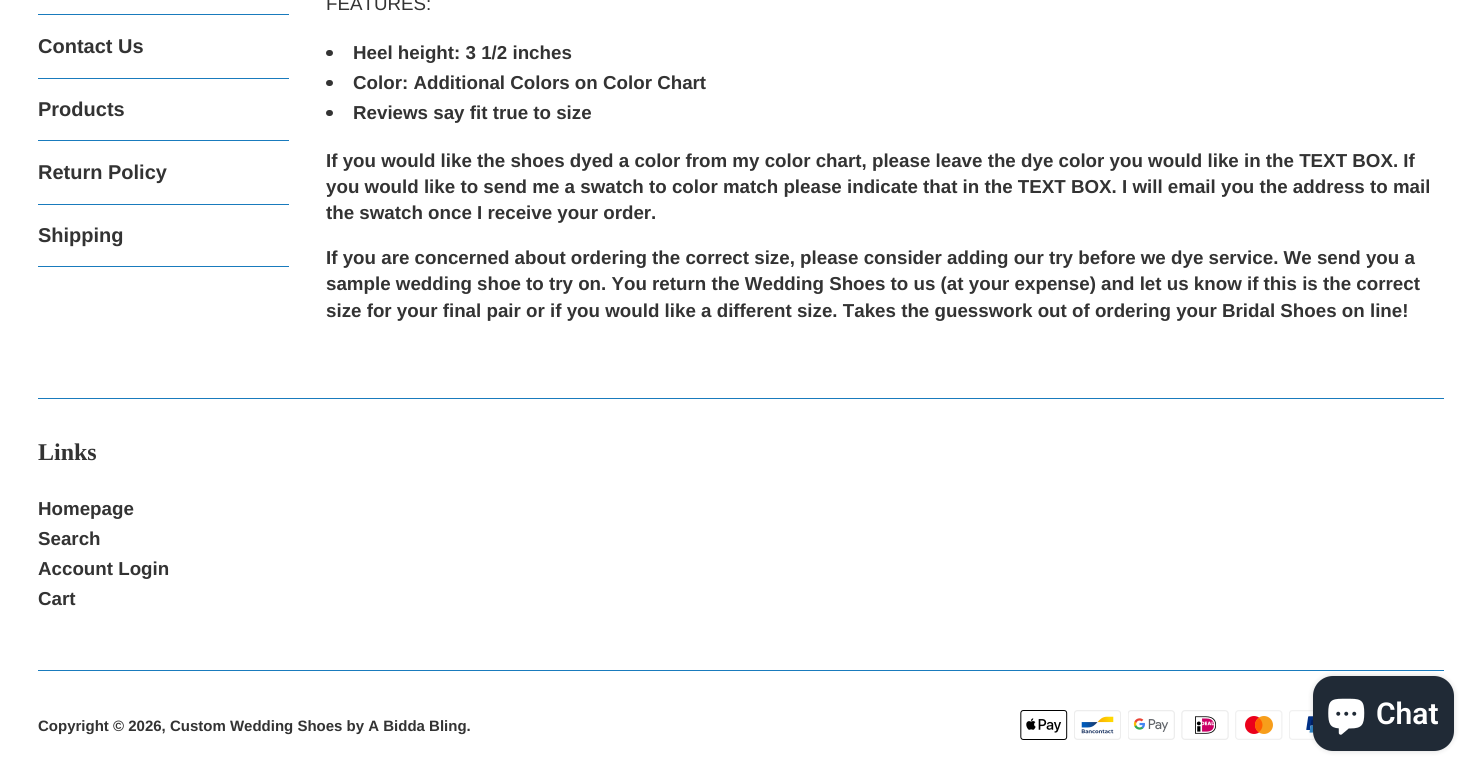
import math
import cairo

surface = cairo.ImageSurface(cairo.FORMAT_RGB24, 1481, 777)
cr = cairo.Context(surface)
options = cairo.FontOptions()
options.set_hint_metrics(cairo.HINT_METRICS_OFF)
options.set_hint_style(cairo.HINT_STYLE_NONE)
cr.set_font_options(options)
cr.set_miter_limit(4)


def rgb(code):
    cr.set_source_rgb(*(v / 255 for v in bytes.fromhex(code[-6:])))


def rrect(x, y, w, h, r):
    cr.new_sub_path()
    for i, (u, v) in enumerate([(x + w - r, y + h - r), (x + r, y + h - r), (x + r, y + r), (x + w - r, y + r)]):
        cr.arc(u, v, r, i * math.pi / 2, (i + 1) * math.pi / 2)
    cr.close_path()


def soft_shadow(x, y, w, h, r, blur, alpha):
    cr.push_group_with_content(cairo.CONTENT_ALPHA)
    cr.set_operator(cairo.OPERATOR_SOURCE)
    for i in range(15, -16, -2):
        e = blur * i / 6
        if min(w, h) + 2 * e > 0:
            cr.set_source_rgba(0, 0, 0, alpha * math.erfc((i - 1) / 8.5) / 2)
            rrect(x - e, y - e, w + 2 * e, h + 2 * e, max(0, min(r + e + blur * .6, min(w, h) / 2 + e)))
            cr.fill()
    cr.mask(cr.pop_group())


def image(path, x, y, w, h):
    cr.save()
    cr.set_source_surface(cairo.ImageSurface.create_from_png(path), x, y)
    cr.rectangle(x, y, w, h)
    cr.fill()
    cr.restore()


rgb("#ffffff")
cr.paint()
for x, y, w, h, color in [
    (38, 14, 251, 1, "#197bbd"),
    (38, 78, 251, 1, "#197bbd"),
    (38, 140, 251, 1, "#197bbd"),
    (38, 204, 251, 1, "#197bbd"),
    (38, 266, 251, 1, "#197bbd"),
]:
    rgb(color)
    cr.rectangle(x, y, w, h)
    cr.fill()
rgb("#333333")
rrect(326, 50, 7, 6, 3)
cr.fill()
rrect(326, 80, 7, 6, 3)
cr.fill()
rrect(326, 110, 7, 6, 3)
cr.fill()
rgb("#197bbd")
cr.rectangle(38, 398, 1406, 1)
cr.fill()
cr.rectangle(38, 670, 1406, 1)
cr.fill()
image("img/1.png", 1020, 710, 48, 30)
image("img/2.png", 1074, 710, 47, 30)
image("img/3.png", 1128, 710, 47, 30)
image("img/4.png", 1181, 710, 48, 30)
image("img/5.png", 1235, 710, 48, 30)
image("img/6.png", 1289, 710, 27, 30)
rgb("#000000")
soft_shadow(1313, 676, 141, 75, 20, 3, 0.15)
rgb("#202a36")
rrect(1313, 676, 141, 75, 20)
cr.fill()
image("img/7.png", 1328, 698, 37, 37)
cr.select_font_face("Liberation Sans", cairo.FONT_SLANT_NORMAL, cairo.FONT_WEIGHT_BOLD)
cr.set_font_size(20)
rgb("#333333")
for x, y, s in [
    (38, 53, "Contact Us"),
    (38, 116, "Products"),
    (38, 179, "Return Policy"),
    (38, 242, "Shipping"),
]:
    cr.move_to(x, y)
    cr.show_text(s)
cr.select_font_face("Liberation Sans")
cr.set_font_size(18.75)
cr.move_to(326, 10)
cr.show_text("FEATURES:")
cr.select_font_face("Liberation Sans", cairo.FONT_SLANT_NORMAL, cairo.FONT_WEIGHT_BOLD)
for x, y, s in [
    (353, 59, "Heel height: 3 1/2 inches"),
    (353, 89, "Color: Additional Colors on Color Chart"),
    (353, 119, "Reviews say fit true to size"),
    (326, 167, "If you would like the shoes dyed a color from my color chart, please leave the dye color you would like in the TEXT BOX. If"),
    (326, 193, "you would like to send me a swatch to color match please indicate that in the TEXT BOX. I will email you the address to mail"),
    (326, 219, "the swatch once I receive your order."),
    (326, 264, "If you are concerned about ordering the correct size, please consider adding our try before we dye service. We send you a"),
    (326, 290, "sample wedding shoe to try on. You return the Wedding Shoes to us (at your expense) and let us know if this is the correct"),
    (326, 317, "size for your final pair or if you would like a different size. Takes the guesswork out of ordering your Bridal Shoes on line!"),
]:
    cr.move_to(x, y)
    cr.show_text(s)
cr.select_font_face("Liberation Serif", cairo.FONT_SLANT_NORMAL, cairo.FONT_WEIGHT_BOLD)
cr.set_font_size(24)
cr.move_to(38, 460)
cr.show_text("Links")
cr.select_font_face("Liberation Sans", cairo.FONT_SLANT_NORMAL, cairo.FONT_WEIGHT_BOLD)
cr.set_font_size(18.75)
for x, y, s in [
    (38, 515, "Homepage"),
    (38, 545, "Search"),
    (38, 575, "Account Login"),
    (38, 605, "Cart"),
]:
    cr.move_to(x, y)
    cr.show_text(s)
cr.set_font_size(15)
cr.move_to(38, 731)
cr.show_text("Copyright © 2026, Custom Wedding Shoes by A Bidda Bling.")
cr.select_font_face("Roboto SemiBold")
cr.set_font_size(30)
rgb("#ffffff")
cr.move_to(1376, 724)
cr.show_text("Chat")
surface.write_to_png("page.png")
